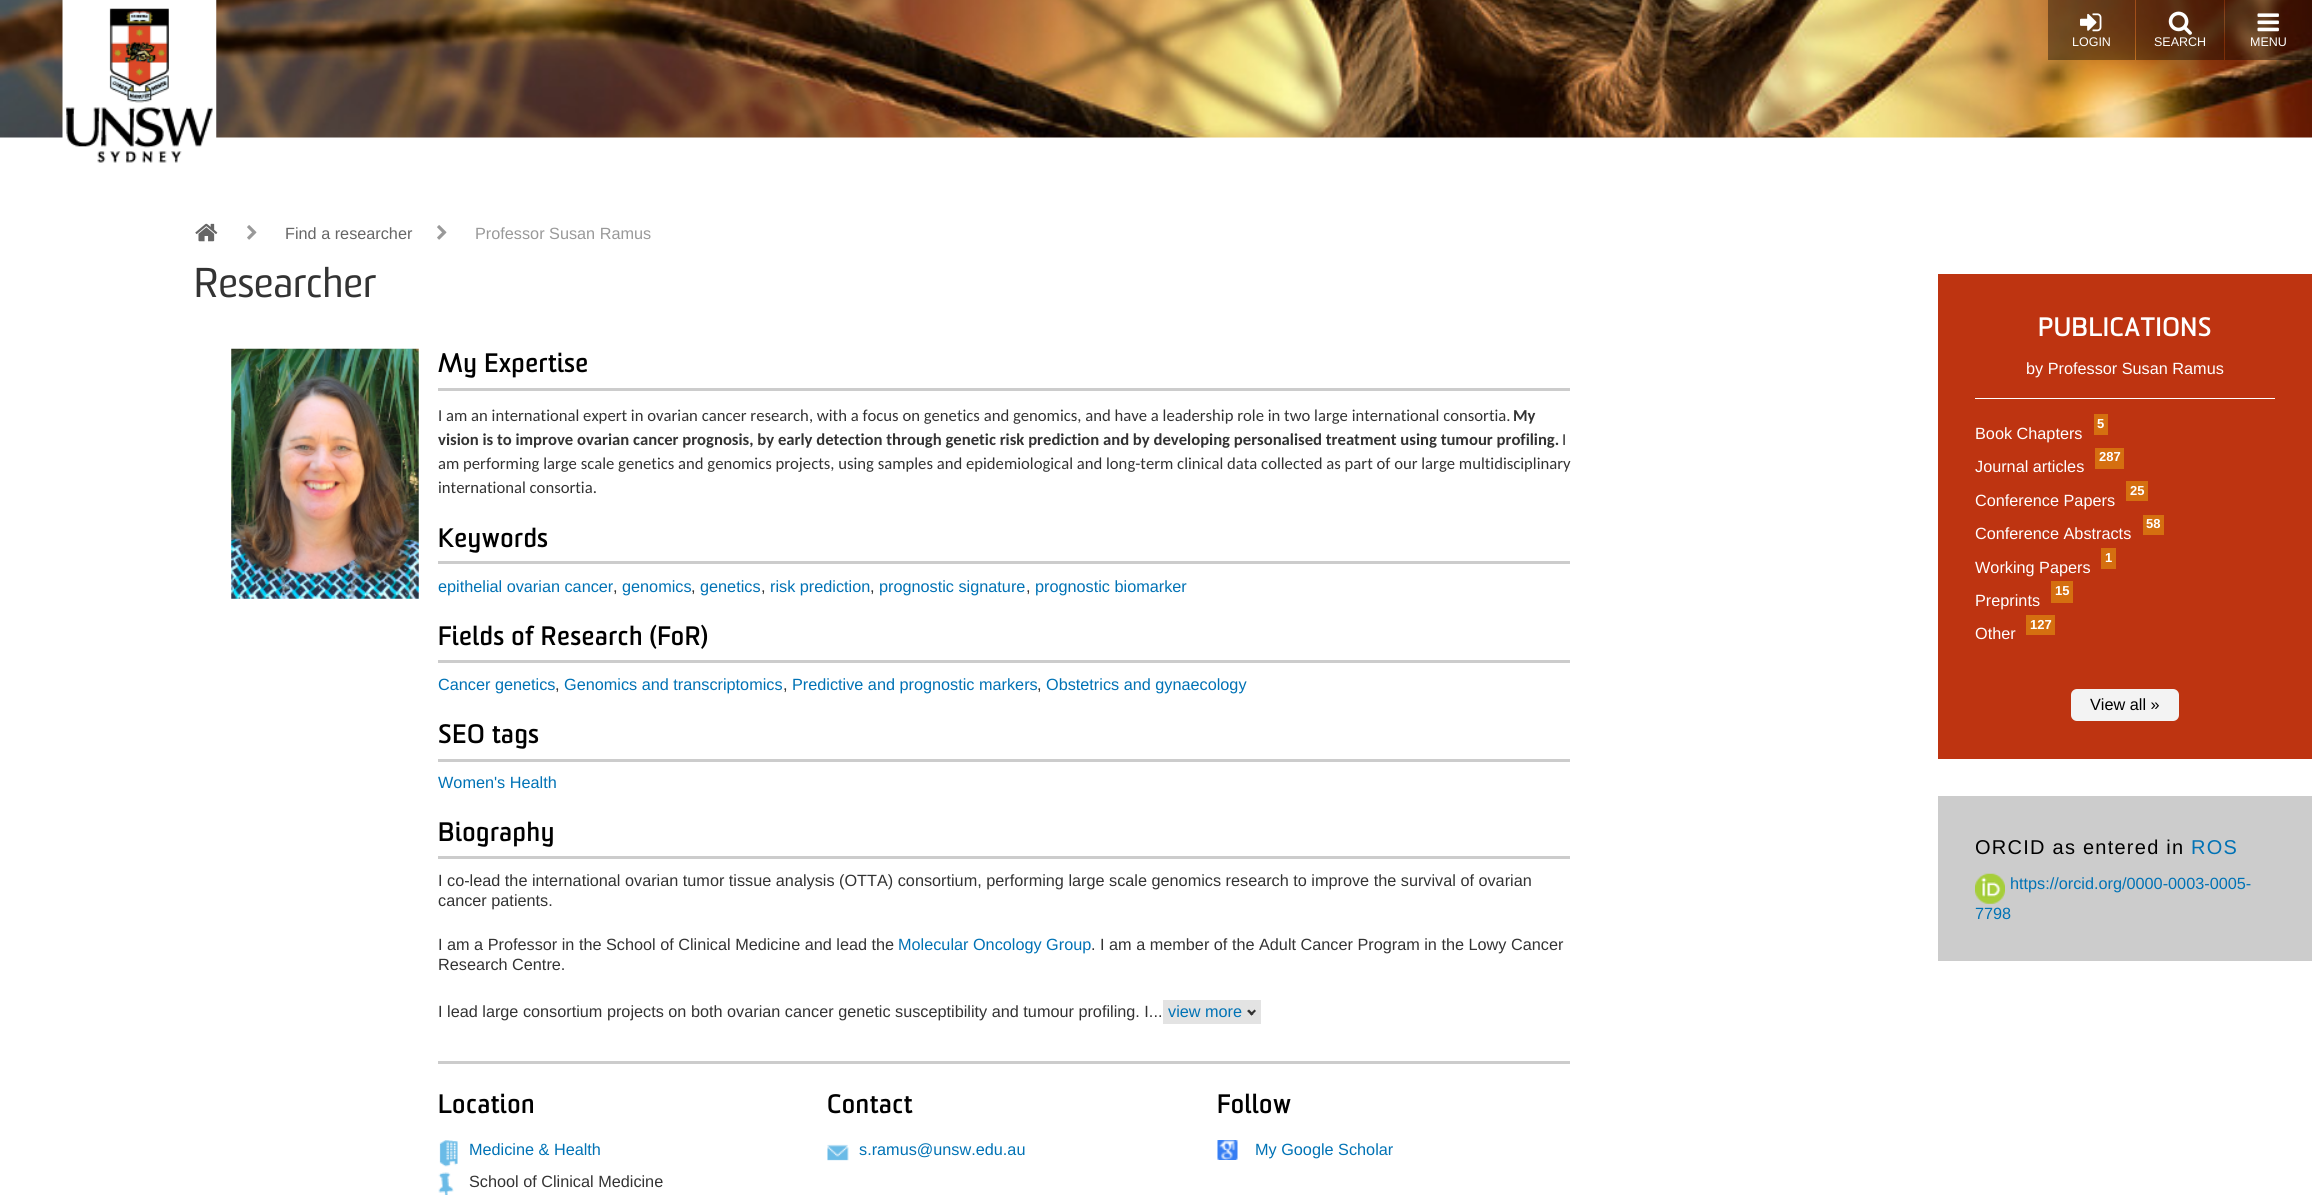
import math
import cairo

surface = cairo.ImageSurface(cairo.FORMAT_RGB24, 2312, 1195)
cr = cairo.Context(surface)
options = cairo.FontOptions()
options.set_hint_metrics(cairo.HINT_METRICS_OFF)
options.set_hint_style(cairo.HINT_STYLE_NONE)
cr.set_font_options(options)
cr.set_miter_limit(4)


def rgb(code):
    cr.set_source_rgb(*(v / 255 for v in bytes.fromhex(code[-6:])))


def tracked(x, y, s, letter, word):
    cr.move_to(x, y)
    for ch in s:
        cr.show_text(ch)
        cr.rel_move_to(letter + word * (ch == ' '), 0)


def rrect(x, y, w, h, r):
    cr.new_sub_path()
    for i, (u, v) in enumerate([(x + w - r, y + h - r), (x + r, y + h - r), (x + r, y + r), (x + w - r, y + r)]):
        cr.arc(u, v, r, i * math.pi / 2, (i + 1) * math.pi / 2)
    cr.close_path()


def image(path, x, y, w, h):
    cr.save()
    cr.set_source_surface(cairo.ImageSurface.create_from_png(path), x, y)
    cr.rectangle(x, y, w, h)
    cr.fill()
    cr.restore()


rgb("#ffffff")
cr.paint()
image("img/1.png", 0, 0, 2312, 138)
image("img/2.png", 62, 0, 155, 163)
cr.set_source_rgba(0, 0, 0, 0.4)
cr.rectangle(2048, 0, 87, 60)
cr.fill()
image("img/3.png", 2080, 13, 22, 19)
cr.rectangle(2136, 0, 88, 60)
cr.fill()
image("img/4.png", 2168, 11, 24, 24)
cr.rectangle(2225, 0, 87, 60)
cr.fill()
image("img/5.png", 2257, 13, 22, 19)
image("img/6.png", 195, 223, 23, 19)
image("img/7.png", 247, 225, 10, 15)
image("img/7.png", 437, 225, 10, 15)
image("img/8.png", 231, 348, 188, 251)
for x, y, w, h, color in [
    (438, 388, 1132, 3, "#cccccc"),
    (438, 561, 1132, 3, "#cccccc"),
    (438, 660, 1132, 3, "#cccccc"),
    (438, 759, 1132, 3, "#cccccc"),
    (438, 856, 1132, 3, "#cccccc"),
    (1163, 1000, 98, 24, "#e3e3e3"),
]:
    rgb(color)
    cr.rectangle(x, y, w, h)
    cr.fill()
rgb("#333333")
cr.new_path()
cr.move_to(1254.5, 1009.5)
cr.line_to(1256, 1011)
cr.line_to(1251.5, 1015.5)
cr.line_to(1250, 1014)
cr.close_path()
cr.fill()
cr.new_path()
cr.move_to(1249, 1009.5)
cr.line_to(1253.5, 1014)
cr.line_to(1251.5, 1015.5)
cr.line_to(1247, 1011)
cr.close_path()
cr.fill()
rgb("#cccccc")
cr.rectangle(438, 1061, 1132, 3)
cr.fill()
image("img/9.png", 439, 1140, 19, 27)
image("img/10.png", 438, 1172, 16, 23)
image("img/11.png", 827, 1144, 22, 17)
image("img/12.png", 1217, 1140, 21, 20)
for x, y, w, h, color in [
    (1938, 274, 374, 485, "#be3411"),
    (1975, 398, 300, 1, "#ffffff"),
    (2094, 414, 14, 21, "#d56f10"),
    (2095, 448, 29, 21, "#d56f10"),
    (2126, 481, 22, 20, "#d56f10"),
    (2143, 515, 21, 20, "#d56f10"),
    (2101, 548, 15, 21, "#d56f10"),
    (2051, 581, 22, 22, "#d56f10"),
    (2026, 615, 29, 20, "#d56f10"),
]:
    rgb(color)
    cr.rectangle(x, y, w, h)
    cr.fill()
rgb("#f3f3f3")
rrect(2071, 689, 108, 32, 6)
cr.fill()
rgb("#cccccc")
cr.rectangle(1938, 796, 374, 165)
cr.fill()
image("img/13.png", 1975, 873, 30, 31)
cr.select_font_face("Liberation Sans")
cr.set_font_size(12.5)
rgb("#ffffff")
for x, y, s in [
    (2072, 46, "LOGIN"),
    (2154, 46, "SEARCH"),
    (2250, 46, "MENU"),
]:
    cr.move_to(x, y)
    cr.show_text(s)
cr.set_font_size(16.25)
rgb("#666666")
cr.move_to(285, 239)
cr.show_text("Find a researcher")
rgb("#999999")
cr.move_to(475, 239)
cr.show_text("Professor Susan Ramus")
cr.select_font_face("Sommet")
cr.set_font_size(40.5)
rgb("#333333")
cr.move_to(194, 297)
cr.show_text("Researcher")
cr.select_font_face("Sommet", cairo.FONT_SLANT_NORMAL, cairo.FONT_WEIGHT_BOLD)
cr.set_font_size(25)
rgb("#000000")
tracked(438, 372, "My Expertise", 1.25, 0)
cr.select_font_face("Carlito")
cr.set_font_size(16.67)
rgb("#333333")
cr.move_to(438, 421)
cr.show_text("I am an international expert in ovarian cancer research, with a focus on genetics and genomics, and have a leadership role in two large international consortia.")
cr.select_font_face("Carlito", cairo.FONT_SLANT_NORMAL, cairo.FONT_WEIGHT_BOLD)
cr.move_to(1513, 421)
cr.show_text("My")
cr.move_to(438, 445)
cr.show_text("vision is to improve ovarian cancer prognosis, by early detection through genetic risk prediction and by developing personalised treatment using tumour profiling.")
cr.select_font_face("Carlito")
for x, y, s in [
    (1562, 445, "I"),
    (438, 469, "am performing large scale genetics and genomics projects, using samples and epidemiological and long-term clinical data collected as part of our large multidisciplinary"),
    (438, 493, "international consortia."),
]:
    cr.move_to(x, y)
    cr.show_text(s)
cr.select_font_face("Sommet", cairo.FONT_SLANT_NORMAL, cairo.FONT_WEIGHT_BOLD)
cr.set_font_size(25)
rgb("#000000")
tracked(438, 547, "Keywords", 1.25, 0)
cr.select_font_face("Liberation Sans")
cr.set_font_size(16.25)
rgb("#0072b5")
cr.move_to(438, 592)
cr.show_text("epithelial ovarian cancer")
rgb("#333333")
cr.move_to(613, 592)
cr.show_text(",")
rgb("#0072b5")
cr.move_to(622, 592)
cr.show_text("genomics")
rgb("#333333")
cr.move_to(691, 592)
cr.show_text(",")
rgb("#0072b5")
cr.move_to(700, 592)
cr.show_text("genetics")
rgb("#333333")
cr.move_to(761, 592)
cr.show_text(",")
rgb("#0072b5")
cr.move_to(770, 592)
cr.show_text("risk prediction")
rgb("#333333")
cr.move_to(870, 592)
cr.show_text(",")
rgb("#0072b5")
cr.move_to(879, 592)
cr.show_text("prognostic signature")
rgb("#333333")
cr.move_to(1026, 592)
cr.show_text(",")
rgb("#0072b5")
cr.move_to(1035, 592)
cr.show_text("prognostic biomarker")
cr.select_font_face("Sommet", cairo.FONT_SLANT_NORMAL, cairo.FONT_WEIGHT_BOLD)
cr.set_font_size(25)
rgb("#000000")
tracked(438, 645, "Fields of Research (FoR)", 1.25, 0)
cr.select_font_face("Liberation Sans")
cr.set_font_size(16.25)
rgb("#0072b5")
cr.move_to(438, 690)
cr.show_text("Cancer genetics")
rgb("#333333")
cr.move_to(555, 690)
cr.show_text(",")
rgb("#0072b5")
cr.move_to(564, 690)
cr.show_text("Genomics and transcriptomics")
rgb("#333333")
cr.move_to(783, 690)
cr.show_text(",")
rgb("#0072b5")
cr.move_to(792, 690)
cr.show_text("Predictive and prognostic markers")
rgb("#333333")
cr.move_to(1037, 690)
cr.show_text(",")
rgb("#0072b5")
cr.move_to(1046, 690)
cr.show_text("Obstetrics and gynaecology")
cr.select_font_face("Sommet", cairo.FONT_SLANT_NORMAL, cairo.FONT_WEIGHT_BOLD)
cr.set_font_size(25)
rgb("#000000")
tracked(438, 743, "SEO tags", 1.25, 0)
cr.select_font_face("Liberation Sans")
cr.set_font_size(16.25)
rgb("#0072b5")
cr.move_to(438, 788)
cr.show_text("Women's Health")
cr.select_font_face("Sommet", cairo.FONT_SLANT_NORMAL, cairo.FONT_WEIGHT_BOLD)
cr.set_font_size(25)
rgb("#000000")
tracked(438, 841, "Biography", 1.25, 0)
cr.select_font_face("Liberation Sans")
cr.set_font_size(16.25)
rgb("#333333")
for x, y, s in [
    (438, 886, "I co-lead the international ovarian tumor tissue analysis (OTTA) consortium, performing large scale genomics research to improve the survival of ovarian"),
    (438, 906, "cancer patients."),
    (438, 950, "I am a Professor in the School of Clinical Medicine and lead the"),
]:
    cr.move_to(x, y)
    cr.show_text(s)
rgb("#0072b5")
cr.move_to(898, 950)
cr.show_text("Molecular Oncology Group")
rgb("#333333")
for x, y, s in [
    (1091, 950, ". I am a member of the Adult Cancer Program in the Lowy Cancer"),
    (438, 970, "Research Centre."),
    (438, 1017, "I lead large consortium projects on both ovarian cancer genetic susceptibility and tumour profiling. I..."),
]:
    cr.move_to(x, y)
    cr.show_text(s)
rgb("#0072b5")
cr.move_to(1168, 1017)
cr.show_text("view more")
cr.select_font_face("Sommet", cairo.FONT_SLANT_NORMAL, cairo.FONT_WEIGHT_BOLD)
cr.set_font_size(25)
rgb("#000000")
tracked(438, 1113, "Location", 1.25, 0)
cr.select_font_face("Liberation Sans")
cr.set_font_size(16.25)
rgb("#0072b5")
cr.move_to(469, 1155)
cr.show_text("Medicine & Health")
rgb("#333333")
cr.move_to(469, 1187)
cr.show_text("School of Clinical Medicine")
cr.select_font_face("Sommet", cairo.FONT_SLANT_NORMAL, cairo.FONT_WEIGHT_BOLD)
cr.set_font_size(25)
rgb("#000000")
tracked(827, 1113, "Contact", 1.25, 0)
cr.select_font_face("Liberation Sans")
cr.set_font_size(16.25)
rgb("#0072b5")
cr.move_to(859, 1155)
cr.show_text("s.ramus@unsw.edu.au")
cr.select_font_face("Sommet", cairo.FONT_SLANT_NORMAL, cairo.FONT_WEIGHT_BOLD)
cr.set_font_size(25)
rgb("#000000")
tracked(1217, 1113, "Follow", 1.25, 0)
cr.select_font_face("Liberation Sans")
cr.set_font_size(16.25)
rgb("#0072b5")
cr.move_to(1255, 1155)
cr.show_text("My Google Scholar")
cr.select_font_face("Sommet", cairo.FONT_SLANT_NORMAL, cairo.FONT_WEIGHT_BOLD)
cr.set_font_size(25)
rgb("#ffffff")
tracked(2038, 336, "PUBLICATIONS", 1.25, 0)
cr.select_font_face("Liberation Sans")
cr.set_font_size(16.25)
cr.move_to(2026, 374)
cr.show_text("by Professor Susan Ramus")
cr.select_font_face("Liberation Sans", cairo.FONT_SLANT_NORMAL, cairo.FONT_WEIGHT_BOLD)
cr.set_font_size(13)
cr.move_to(2097, 428)
cr.show_text("5")
cr.select_font_face("Liberation Sans")
cr.set_font_size(16.25)
cr.move_to(1975, 439)
cr.show_text("Book Chapters")
cr.select_font_face("Liberation Sans", cairo.FONT_SLANT_NORMAL, cairo.FONT_WEIGHT_BOLD)
cr.set_font_size(13)
cr.move_to(2099, 461)
cr.show_text("287")
cr.select_font_face("Liberation Sans")
cr.set_font_size(16.25)
cr.move_to(1975, 472)
cr.show_text("Journal articles")
cr.select_font_face("Liberation Sans", cairo.FONT_SLANT_NORMAL, cairo.FONT_WEIGHT_BOLD)
cr.set_font_size(13)
cr.move_to(2130, 495)
cr.show_text("25")
cr.select_font_face("Liberation Sans")
cr.set_font_size(16.25)
cr.move_to(1975, 506)
cr.show_text("Conference Papers")
cr.select_font_face("Liberation Sans", cairo.FONT_SLANT_NORMAL, cairo.FONT_WEIGHT_BOLD)
cr.set_font_size(13)
cr.move_to(2146, 528)
cr.show_text("58")
cr.select_font_face("Liberation Sans")
cr.set_font_size(16.25)
cr.move_to(1975, 539)
cr.show_text("Conference Abstracts")
cr.select_font_face("Liberation Sans", cairo.FONT_SLANT_NORMAL, cairo.FONT_WEIGHT_BOLD)
cr.set_font_size(13)
cr.move_to(2105, 562)
cr.show_text("1")
cr.select_font_face("Liberation Sans")
cr.set_font_size(16.25)
cr.move_to(1975, 573)
cr.show_text("Working Papers")
cr.select_font_face("Liberation Sans", cairo.FONT_SLANT_NORMAL, cairo.FONT_WEIGHT_BOLD)
cr.set_font_size(13)
cr.move_to(2055, 595)
cr.show_text("15")
cr.select_font_face("Liberation Sans")
cr.set_font_size(16.25)
cr.move_to(1975, 606)
cr.show_text("Preprints")
cr.select_font_face("Liberation Sans", cairo.FONT_SLANT_NORMAL, cairo.FONT_WEIGHT_BOLD)
cr.set_font_size(13)
cr.move_to(2030, 629)
cr.show_text("127")
cr.select_font_face("Liberation Sans")
cr.set_font_size(16.25)
cr.move_to(1975, 639)
cr.show_text("Other")
rgb("#000000")
cr.move_to(2090, 710)
cr.show_text("View all »")
cr.set_font_size(20)
tracked(1975, 854, "ORCID as entered in", 1.25, 0)
rgb("#0072b5")
tracked(2191, 854, "ROS", 1.25, 0)
cr.set_font_size(16.25)
cr.move_to(2010, 889)
cr.show_text("https://orcid.org/0000-0003-0005-")
cr.move_to(1975, 919)
cr.show_text("7798")
surface.write_to_png("page.png")
